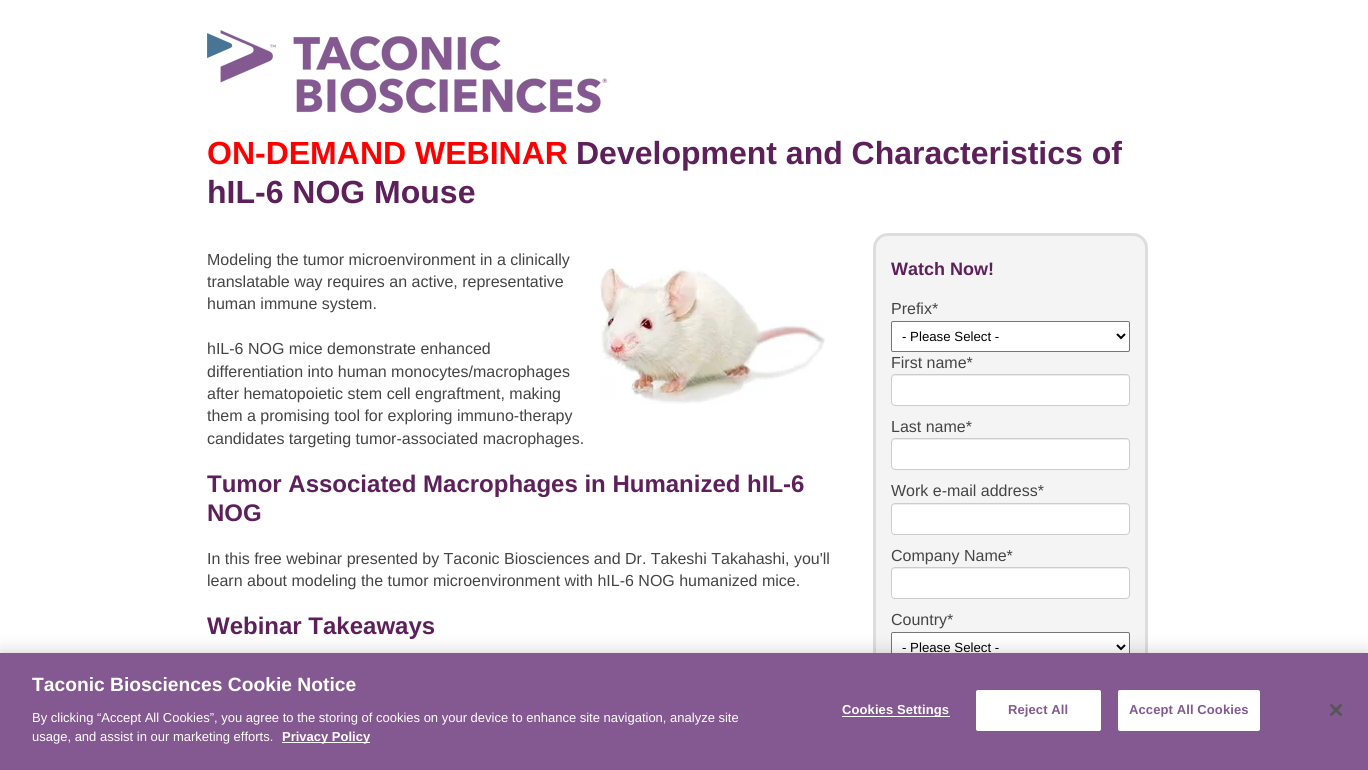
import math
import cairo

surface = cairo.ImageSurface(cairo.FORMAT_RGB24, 1368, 770)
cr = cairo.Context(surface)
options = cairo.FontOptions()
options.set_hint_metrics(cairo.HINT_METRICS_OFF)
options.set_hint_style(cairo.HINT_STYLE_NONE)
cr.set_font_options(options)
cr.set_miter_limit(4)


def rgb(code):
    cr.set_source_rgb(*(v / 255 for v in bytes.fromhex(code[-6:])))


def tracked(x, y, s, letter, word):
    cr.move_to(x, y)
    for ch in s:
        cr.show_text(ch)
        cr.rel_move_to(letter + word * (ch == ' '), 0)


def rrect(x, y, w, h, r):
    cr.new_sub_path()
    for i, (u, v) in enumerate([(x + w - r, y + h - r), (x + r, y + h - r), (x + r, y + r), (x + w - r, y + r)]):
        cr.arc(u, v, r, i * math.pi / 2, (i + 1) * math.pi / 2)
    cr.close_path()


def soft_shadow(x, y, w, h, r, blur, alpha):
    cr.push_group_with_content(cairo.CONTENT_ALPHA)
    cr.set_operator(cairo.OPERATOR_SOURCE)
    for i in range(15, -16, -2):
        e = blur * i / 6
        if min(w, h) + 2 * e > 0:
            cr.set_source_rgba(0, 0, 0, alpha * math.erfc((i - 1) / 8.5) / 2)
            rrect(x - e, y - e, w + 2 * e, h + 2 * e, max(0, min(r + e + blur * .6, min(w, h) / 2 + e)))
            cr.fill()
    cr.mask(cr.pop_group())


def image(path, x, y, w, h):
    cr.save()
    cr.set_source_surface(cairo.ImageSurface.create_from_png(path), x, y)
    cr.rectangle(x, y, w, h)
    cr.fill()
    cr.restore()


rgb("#ffffff")
cr.paint()
image("img/1.png", 207, 30, 400, 83)
image("img/2.png", 599, 266, 226, 138)
rgb("#f4f4f4")
rrect(874.5, 234.5, 272, 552, 13.5)
cr.fill_preserve()
rgb("#dddddd")
cr.set_line_width(3)
cr.stroke()
rgb("#ffffff")
rrect(891.5, 321.5, 238, 30, 1.5)
cr.fill_preserve()
rgb("#767676")
cr.set_line_width(1)
cr.stroke()
cr.new_path()
cr.move_to(1117, 334)
cr.line_to(1121, 338)
cr.line_to(1125, 334)
rgb("#000000")
cr.set_line_width(2)
cr.stroke()
rgb("#ffffff")
rrect(891, 374, 239, 32, 4)
cr.fill()
rgb("#ececec")
cr.new_path()
cr.move_to(895, 376)
cr.line_to(1127, 376)
cr.line_to(1129, 377)
cr.line_to(1129, 379)
cr.curve_to(1129, 377, 1128, 375, 1126, 375)
cr.line_to(895, 375)
cr.curve_to(893, 375, 892, 377, 892, 379)
cr.curve_to(892, 377, 893, 376, 895, 376)
cr.close_path()
cr.fill()
rrect(891.5, 374.5, 238, 31, 3.5)
rgb("#cccccc")
cr.set_line_width(1)
cr.stroke()
rgb("#ffffff")
rrect(891, 438, 239, 32, 4)
cr.fill()
rgb("#ececec")
cr.new_path()
cr.move_to(895, 440)
cr.line_to(1127, 440)
cr.line_to(1129, 441)
cr.line_to(1129, 443)
cr.curve_to(1129, 441, 1128, 439, 1126, 439)
cr.line_to(895, 439)
cr.curve_to(893, 439, 892, 441, 892, 443)
cr.curve_to(892, 441, 893, 440, 895, 440)
cr.close_path()
cr.fill()
rrect(891.5, 438.5, 238, 31, 3.5)
rgb("#cccccc")
cr.stroke()
rgb("#ffffff")
rrect(891, 503, 239, 32, 4)
cr.fill()
rgb("#ececec")
cr.new_path()
cr.move_to(895, 505)
cr.line_to(1127, 505)
cr.line_to(1129, 506)
cr.line_to(1129, 508)
cr.curve_to(1129, 506, 1128, 504, 1126, 504)
cr.line_to(895, 504)
cr.curve_to(893, 504, 892, 506, 892, 508)
cr.curve_to(892, 506, 893, 505, 895, 505)
cr.close_path()
cr.fill()
rrect(891.5, 503.5, 238, 31, 3.5)
rgb("#cccccc")
cr.stroke()
rgb("#ffffff")
rrect(891, 567, 239, 32, 4)
cr.fill()
rgb("#ececec")
cr.new_path()
cr.move_to(895, 569)
cr.line_to(1127, 569)
cr.line_to(1129, 570)
cr.line_to(1129, 572)
cr.curve_to(1129, 570, 1128, 568, 1126, 568)
cr.line_to(895, 568)
cr.curve_to(893, 568, 892, 570, 892, 572)
cr.curve_to(892, 570, 893, 569, 895, 569)
cr.close_path()
cr.fill()
rrect(891.5, 567.5, 238, 31, 3.5)
rgb("#cccccc")
cr.stroke()
rgb("#ffffff")
rrect(891.5, 632.5, 238, 30, 1.5)
cr.fill_preserve()
rgb("#767676")
cr.stroke()
cr.new_path()
cr.move_to(1117, 645)
cr.line_to(1121, 649)
cr.line_to(1125, 645)
rgb("#000000")
cr.set_line_width(2)
cr.stroke()
rgb("#000000")
soft_shadow(0, 653, 1368, 117, 0, 9, 0.2)
for x, y, w, h, color in [
    (0, 653, 1368, 117, "#845890"),
    (282, 742, 88, 1, "#ffffff"),
    (842, 716, 108, 1, "#ffffff"),
]:
    rgb(color)
    cr.rectangle(x, y, w, h)
    cr.fill()
rrect(976.5, 690.5, 124, 40, 1.5)
cr.fill_preserve()
cr.set_line_width(1)
cr.stroke()
rrect(1118.5, 690.5, 141, 40, 1.5)
cr.fill_preserve()
cr.stroke()
image("img/3.png", 1330, 704, 12, 12)
cr.select_font_face("Liberation Sans", cairo.FONT_SLANT_NORMAL, cairo.FONT_WEIGHT_BOLD)
cr.set_font_size(32)
rgb("#ff0000")
cr.move_to(207, 164)
cr.show_text("ON-DEMAND WEBINAR")
rgb("#5d205b")
cr.move_to(576, 164)
cr.show_text("Development and Characteristics of")
cr.move_to(207, 203)
cr.show_text("hIL-6 NOG Mouse")
cr.select_font_face("Liberation Sans")
cr.set_font_size(16)
rgb("#444444")
for x, y, s in [
    (207, 265, "Modeling the tumor microenvironment in a clinically"),
    (207, 287, "translatable way requires an active, representative"),
    (207, 309, "human immune system."),
    (207, 354, "hIL-6 NOG mice demonstrate enhanced"),
    (207, 377, "differentiation into human monocytes/macrophages"),
    (207, 399, "after hematopoietic stem cell engraftment, making"),
    (207, 421, "them a promising tool for exploring immuno-therapy"),
    (207, 444, "candidates targeting tumor-associated macrophages."),
]:
    cr.move_to(x, y)
    cr.show_text(s)
cr.select_font_face("Liberation Sans", cairo.FONT_SLANT_NORMAL, cairo.FONT_WEIGHT_BOLD)
cr.set_font_size(24)
rgb("#5d205b")
cr.move_to(207, 492)
cr.show_text("Tumor Associated Macrophages in Humanized hIL-6")
cr.move_to(207, 521)
cr.show_text("NOG")
cr.select_font_face("Liberation Sans")
cr.set_font_size(16)
rgb("#444444")
cr.move_to(207, 564)
cr.show_text("In this free webinar presented by Taconic Biosciences and Dr. Takeshi Takahashi, you'll")
cr.move_to(207, 586)
cr.show_text("learn about modeling the tumor microenvironment with hIL-6 NOG humanized mice.")
cr.select_font_face("Liberation Sans", cairo.FONT_SLANT_NORMAL, cairo.FONT_WEIGHT_BOLD)
cr.set_font_size(24)
rgb("#5d205b")
cr.move_to(207, 634)
cr.show_text("Webinar Takeaways")
cr.set_font_size(18)
cr.move_to(891, 275)
cr.show_text("Watch Now!")
cr.select_font_face("Liberation Sans")
cr.set_font_size(16)
rgb("#444444")
cr.move_to(891, 314)
cr.show_text("Prefix*")
cr.set_font_size(13.25)
rgb("#000000")
cr.move_to(902, 341)
cr.show_text("- Please Select -")
cr.set_font_size(16)
rgb("#444444")
for x, y, s in [
    (891, 368, "First name*"),
    (891, 432, "Last name*"),
    (891, 496, "Work e-mail address*"),
    (891, 561, "Company Name*"),
    (891, 625, "Country*"),
]:
    cr.move_to(x, y)
    cr.show_text(s)
cr.set_font_size(13.25)
rgb("#000000")
cr.move_to(902, 652)
cr.show_text("- Please Select -")
cr.select_font_face("Liberation Sans", cairo.FONT_SLANT_NORMAL, cairo.FONT_WEIGHT_BOLD)
cr.set_font_size(19.25)
rgb("#ffffff")
cr.move_to(32, 691)
cr.show_text("Taconic Biosciences Cookie Notice")
cr.select_font_face("Liberation Sans")
cr.set_font_size(13)
cr.move_to(32, 722)
cr.show_text("By clicking “Accept All Cookies”, you agree to the storing of cookies on your device to enhance site navigation, analyze site")
cr.move_to(32, 741)
cr.show_text("usage, and assist in our marketing efforts.")
cr.select_font_face("Liberation Sans", cairo.FONT_SLANT_NORMAL, cairo.FONT_WEIGHT_BOLD)
cr.move_to(282, 741)
cr.show_text("Privacy Policy")
tracked(842, 714, "Cookies Settings", 0.1, 0)
rgb("#845890")
tracked(1008, 714, "Reject All", 0.1, 0)
tracked(1129, 714, "Accept All Cookies", 0.1, 0)
surface.write_to_png("page.png")
